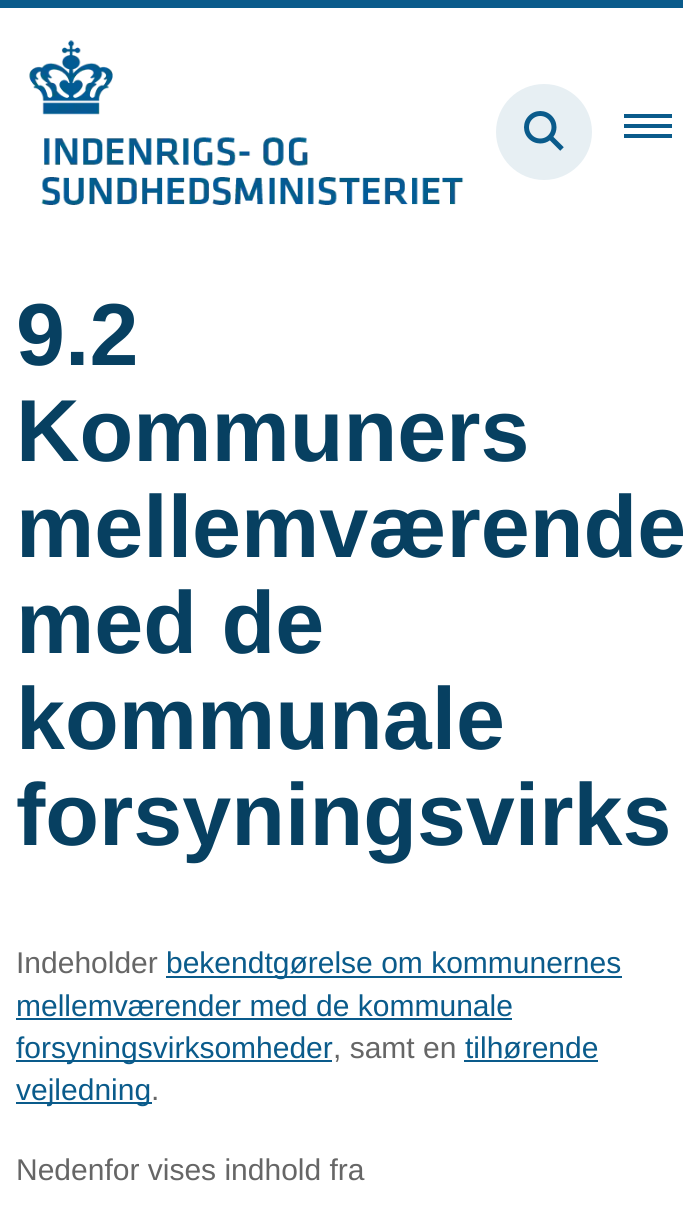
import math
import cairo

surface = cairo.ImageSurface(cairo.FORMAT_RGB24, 683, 1207)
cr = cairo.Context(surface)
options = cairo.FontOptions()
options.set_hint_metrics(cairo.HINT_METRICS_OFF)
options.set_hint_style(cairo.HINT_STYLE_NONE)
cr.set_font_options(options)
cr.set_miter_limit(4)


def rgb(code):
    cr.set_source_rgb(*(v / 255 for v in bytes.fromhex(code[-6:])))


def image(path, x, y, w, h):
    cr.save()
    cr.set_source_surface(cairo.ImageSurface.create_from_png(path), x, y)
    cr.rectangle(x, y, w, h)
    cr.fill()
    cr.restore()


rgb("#ffffff")
cr.paint()
rgb("#0a5b8b")
cr.rectangle(0, 0, 683, 8)
cr.fill()
image("img/1.png", 29, 40, 435, 165)
rgb("#e7eff3")
cr.arc(544, 132, 48, 0, 2 * math.pi)
cr.fill()
image("img/2.png", 524, 111, 40, 40)
for x, y, w, h, color in [
    (624, 124, 48, 4, "#0a5b8b"),
    (624, 114, 48, 4, "#0a5b8b"),
    (624, 134, 48, 4, "#0a5b8b"),
    (166, 976, 456, 2, "#0a5b8b"),
    (16, 1018, 496, 2, "#0a5b8b"),
    (16, 1060, 316, 2, "#0a5b8b"),
    (464, 1060, 134, 2, "#0a5b8b"),
    (16, 1102, 136, 2, "#0a5b8b"),
]:
    rgb(color)
    cr.rectangle(x, y, w, h)
    cr.fill()
cr.select_font_face("Liberation Sans", cairo.FONT_SLANT_NORMAL, cairo.FONT_WEIGHT_BOLD)
cr.set_font_size(88)
rgb("#074061")
for x, y, s in [
    (16, 365, "9.2"),
    (16, 461, "Kommuners"),
    (16, 557, "mellemværende"),
    (16, 653, "med de"),
    (16, 749, "kommunale"),
    (16, 845, "forsyningsvirks"),
]:
    cr.move_to(x, y)
    cr.show_text(s)
cr.select_font_face("Liberation Sans")
cr.set_font_size(30)
rgb("#666666")
cr.move_to(16, 973)
cr.show_text("Indeholder")
rgb("#0a5b8b")
for x, y, s in [
    (166, 973, "bekendtgørelse om kommunernes"),
    (16, 1016, "mellemværender med de kommunale"),
    (16, 1058, "forsyningsvirksomheder"),
]:
    cr.move_to(x, y)
    cr.show_text(s)
rgb("#666666")
cr.move_to(333, 1058)
cr.show_text(", samt en")
rgb("#0a5b8b")
cr.move_to(465, 1058)
cr.show_text("tilhørende")
cr.move_to(16, 1100)
cr.show_text("vejledning")
rgb("#666666")
cr.move_to(151, 1100)
cr.show_text(".")
cr.move_to(16, 1180)
cr.show_text("Nedenfor vises indhold fra")
surface.write_to_png("page.png")
